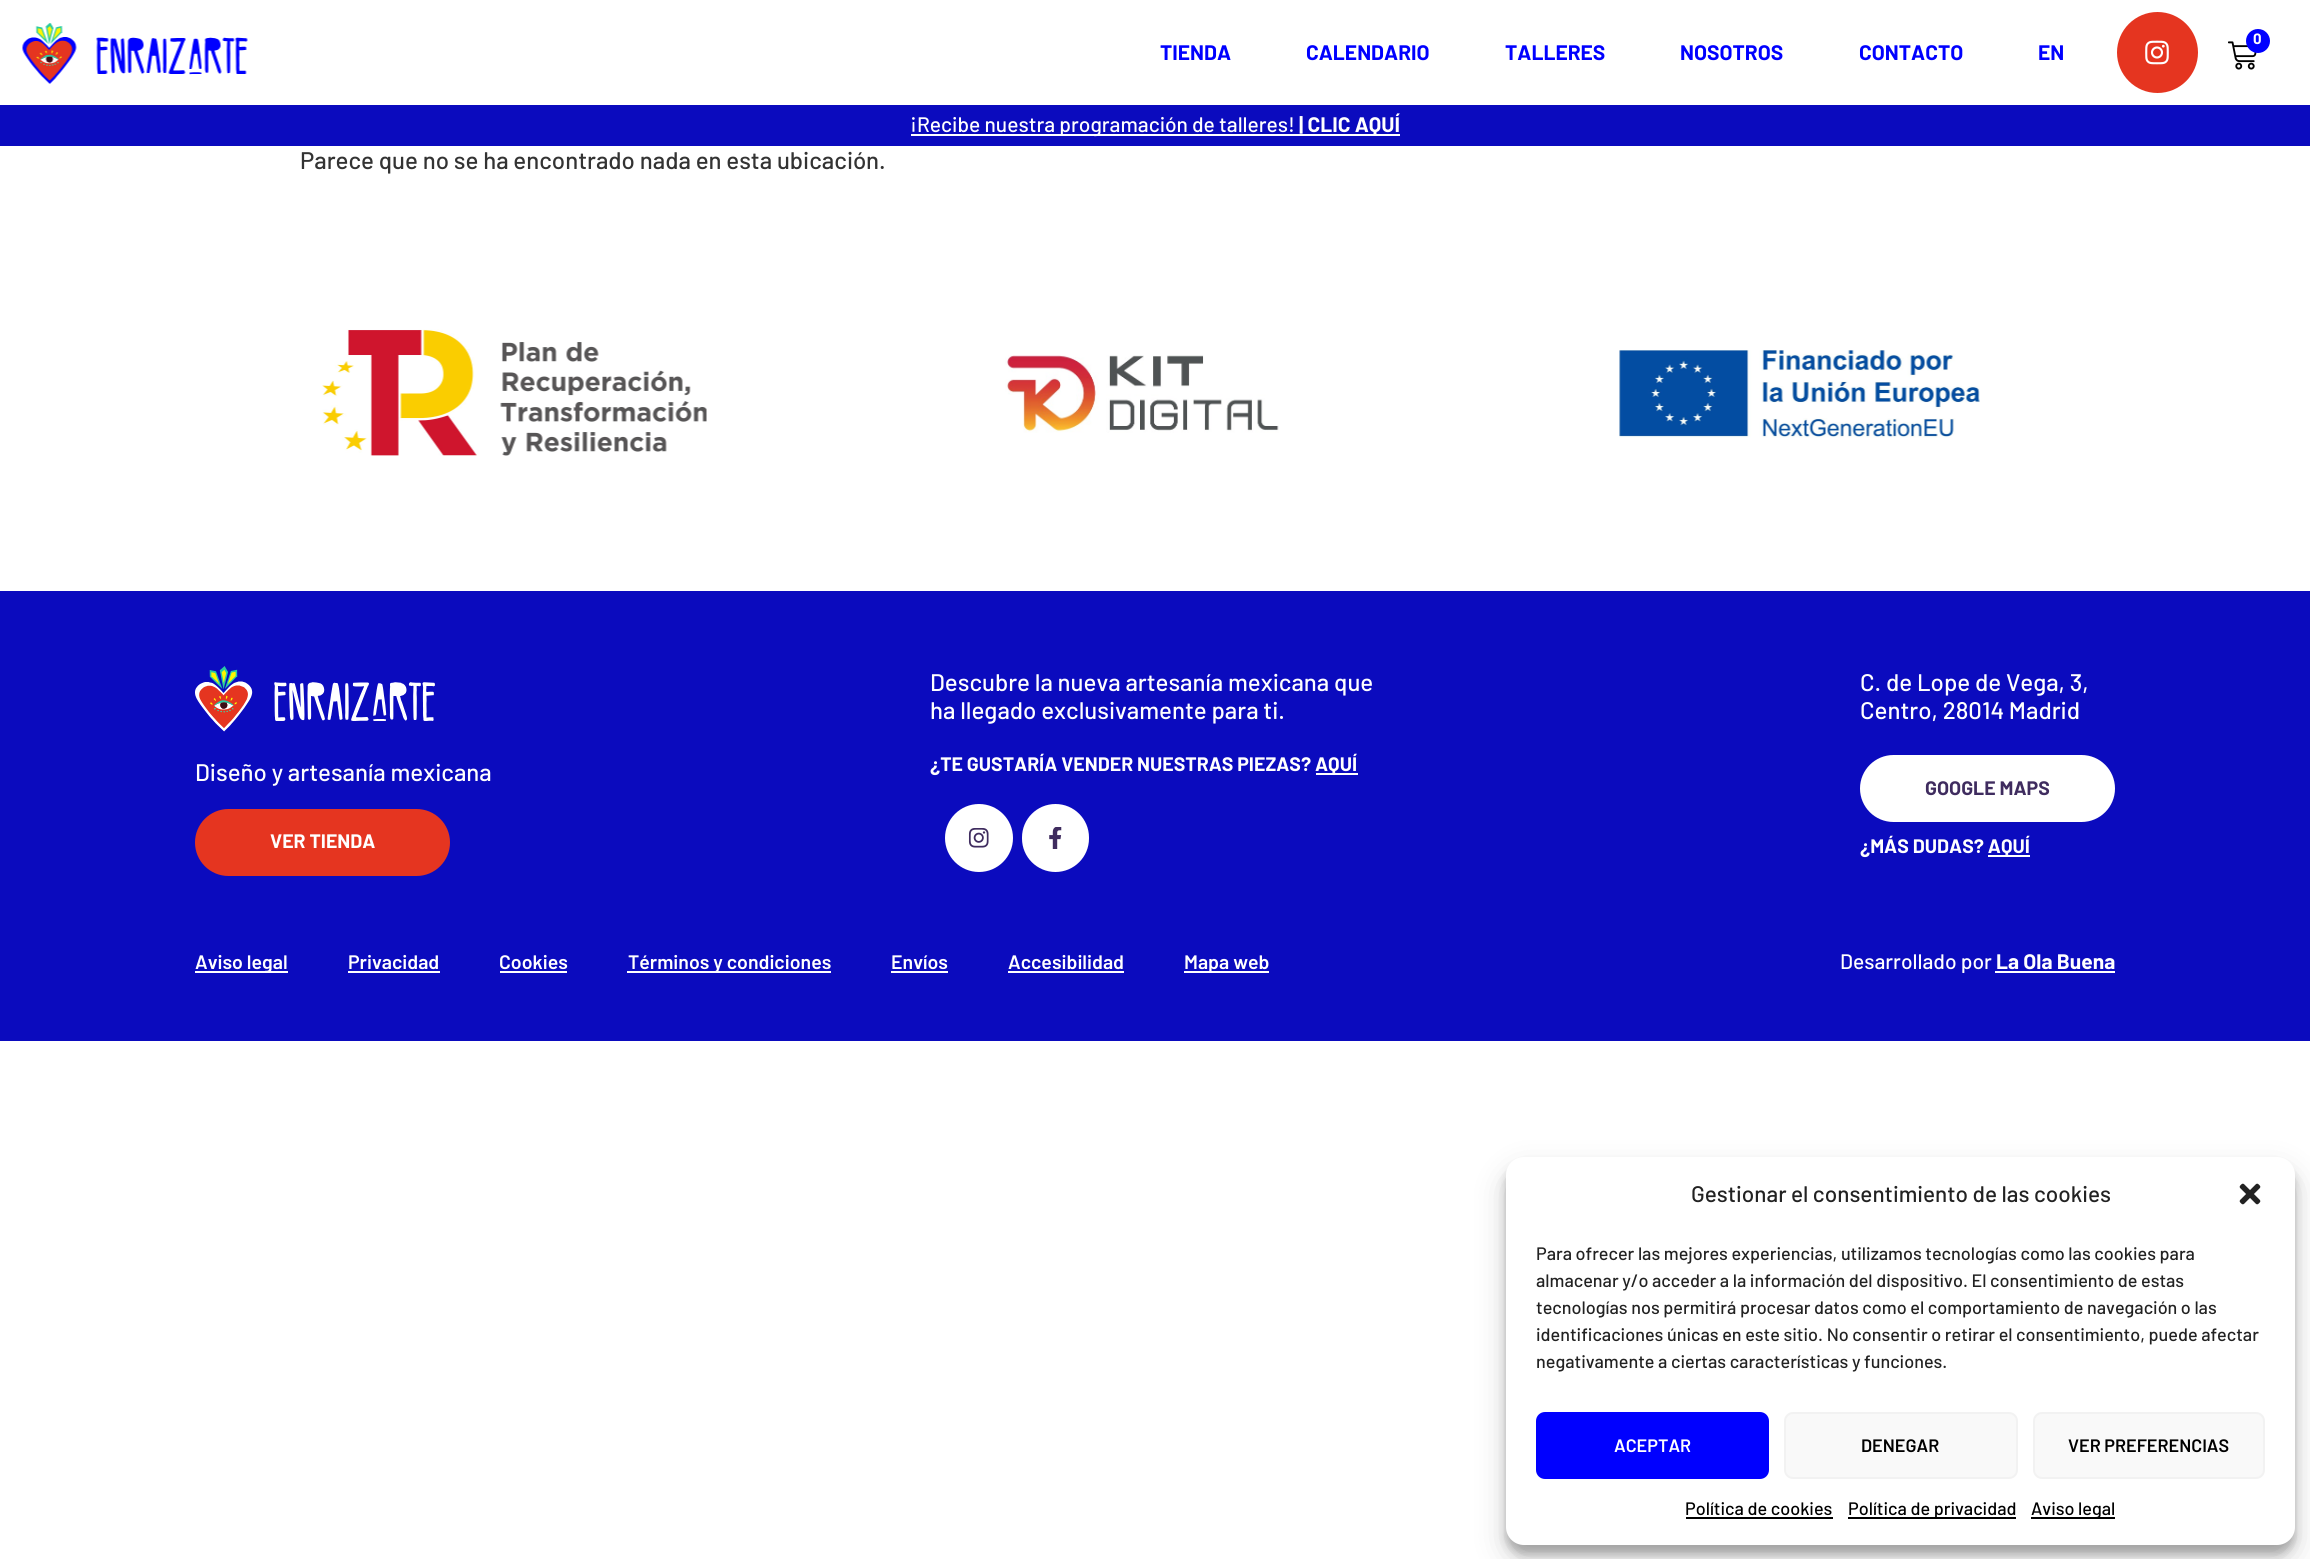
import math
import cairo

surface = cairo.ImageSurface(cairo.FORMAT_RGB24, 2310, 1559)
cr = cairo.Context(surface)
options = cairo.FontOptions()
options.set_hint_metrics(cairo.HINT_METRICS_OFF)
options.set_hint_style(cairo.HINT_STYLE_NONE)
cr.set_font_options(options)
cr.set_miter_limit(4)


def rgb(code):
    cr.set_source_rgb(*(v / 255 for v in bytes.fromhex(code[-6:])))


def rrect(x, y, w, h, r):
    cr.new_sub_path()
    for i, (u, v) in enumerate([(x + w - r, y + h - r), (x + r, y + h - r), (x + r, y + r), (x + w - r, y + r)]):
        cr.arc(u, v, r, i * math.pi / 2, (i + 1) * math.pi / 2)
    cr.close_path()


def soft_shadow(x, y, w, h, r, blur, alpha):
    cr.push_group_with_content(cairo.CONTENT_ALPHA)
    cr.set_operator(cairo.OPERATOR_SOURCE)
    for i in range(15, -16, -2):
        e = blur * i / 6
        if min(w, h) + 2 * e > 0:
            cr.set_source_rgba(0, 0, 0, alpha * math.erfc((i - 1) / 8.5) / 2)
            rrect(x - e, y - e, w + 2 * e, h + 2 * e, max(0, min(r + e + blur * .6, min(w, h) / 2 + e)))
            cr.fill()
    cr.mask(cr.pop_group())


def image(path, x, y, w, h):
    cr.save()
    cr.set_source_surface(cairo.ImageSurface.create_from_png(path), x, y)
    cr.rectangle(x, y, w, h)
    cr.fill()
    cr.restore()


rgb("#ffffff")
cr.paint()
image("img/1.png", 22, 23, 226, 61)
rgb("#e53520")
cr.arc(2157.5, 52.5, 40.5, 0, 2 * math.pi)
cr.fill()
image("img/2.png", 2145, 40, 24, 25)
image("img/3.png", 2228, 41, 29, 29)
rgb("#0000ff")
cr.arc(2258, 41, 12, 0, 2 * math.pi)
cr.fill()
rgb("#0b0bbe")
cr.rectangle(0, 105, 2310, 41)
cr.fill()
rgb("#ffffff")
cr.rectangle(911, 134, 489, 2)
cr.fill()
image("img/4.png", 322, 329, 385, 127)
image("img/5.png", 1005, 355, 274, 78)
image("img/6.png", 1619, 350, 361, 88)
rgb("#0b0bbe")
cr.rectangle(0, 591, 2310, 450)
cr.fill()
image("img/7.png", 195, 666, 240, 66)
rgb("#e53520")
rrect(195, 809, 255, 67, 33.5)
cr.fill()
rgb("#ffffff")
cr.rectangle(1316, 773, 42, 2)
cr.fill()
cr.arc(979, 838, 34, 0, 2 * math.pi)
cr.fill()
image("img/8.png", 968, 828, 21, 20)
rrect(1022, 804, 67, 68, 33.5)
cr.fill()
image("img/9.png", 1049, 827, 13, 22)
rrect(1860, 755, 255, 67, 33.5)
cr.fill()
for x, y, w, h, color in [
    (1988, 855, 42, 2, "#ffffff"),
    (195, 971, 93, 2, "#ffffff"),
    (348, 971, 92, 2, "#ffffff"),
    (500, 971, 67, 2, "#ffffff"),
    (627, 971, 204, 2, "#ffffff"),
    (891, 971, 57, 2, "#ffffff"),
    (1008, 971, 116, 2, "#ffffff"),
    (1184, 971, 85, 2, "#ffffff"),
    (1995, 971, 120, 2, "#ffffff"),
]:
    rgb(color)
    cr.rectangle(x, y, w, h)
    cr.fill()
rgb("#000000")
soft_shadow(1506, 1166, 789, 388, 18, 4.5, 0.23)
soft_shadow(1506, 1172, 789, 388, 18, 15, 0.19)
rgb("#ffffff")
rrect(1506, 1157, 789, 388, 18)
cr.fill()
image("img/10.png", 2239, 1183, 22, 22)
rgb("#0000ff")
rrect(1537, 1413, 231, 65, 8)
cr.fill_preserve()
cr.stroke()
rgb("#f9f9f9")
rrect(1785, 1413, 232, 65, 8)
cr.fill_preserve()
rgb("#f2f2f2")
cr.stroke()
rgb("#f9f9f9")
rrect(2034, 1413, 230, 65, 8)
cr.fill_preserve()
rgb("#f2f2f2")
cr.stroke()
for x, y, w, h, color in [
    (1686, 1517, 147, 2, "#000000"),
    (1848, 1517, 168, 2, "#000000"),
    (2031, 1517, 84, 2, "#000000"),
]:
    rgb(color)
    cr.rectangle(x, y, w, h)
    cr.fill()
cr.select_font_face("Barlow", cairo.FONT_SLANT_NORMAL, cairo.FONT_WEIGHT_BOLD)
cr.set_font_size(15)
rgb("#ffffff")
cr.move_to(2253, 44)
cr.show_text("0")
cr.set_font_size(21)
rgb("#0000ff")
for x, y, s in [
    (1160, 60, "TIENDA"),
    (1306, 60, "CALENDARIO"),
    (1505, 60, "TALLERES"),
    (1680, 60, "NOSOTROS"),
    (1859, 60, "CONTACTO"),
    (2038, 60, "EN"),
]:
    cr.move_to(x, y)
    cr.show_text(s)
cr.select_font_face("Barlow Medium")
rgb("#ffffff")
cr.move_to(910, 132)
cr.show_text("¡Recibe nuestra programación de talleres!")
cr.select_font_face("Barlow", cairo.FONT_SLANT_NORMAL, cairo.FONT_WEIGHT_BOLD)
cr.move_to(1299, 132)
cr.show_text("| CLIC AQUÍ")
cr.select_font_face("Barlow Medium")
cr.set_font_size(24)
rgb("#333333")
cr.move_to(300, 169)
cr.show_text("Parece que no se ha encontrado nada en esta ubicación.")
rgb("#ffffff")
cr.move_to(195, 781)
cr.show_text("Diseño y artesanía mexicana")
cr.select_font_face("Barlow", cairo.FONT_SLANT_NORMAL, cairo.FONT_WEIGHT_BOLD)
cr.set_font_size(19.5)
cr.move_to(270, 848)
cr.show_text("VER TIENDA")
cr.select_font_face("Barlow Medium")
cr.set_font_size(24)
cr.move_to(930, 691)
cr.show_text("Descubre la nueva artesanía mexicana que")
cr.move_to(930, 719)
cr.show_text("ha llegado exclusivamente para ti.")
cr.select_font_face("Barlow", cairo.FONT_SLANT_NORMAL, cairo.FONT_WEIGHT_BOLD)
cr.set_font_size(19.5)
cr.move_to(930, 771)
cr.show_text("¿TE GUSTARÍA VENDER NUESTRAS PIEZAS? AQUÍ")
cr.select_font_face("Barlow Medium")
cr.set_font_size(24)
cr.move_to(1860, 691)
cr.show_text("C. de Lope de Vega, 3,")
cr.move_to(1860, 719)
cr.show_text("Centro, 28014 Madrid")
cr.select_font_face("Barlow", cairo.FONT_SLANT_NORMAL, cairo.FONT_WEIGHT_BOLD)
cr.set_font_size(19.5)
rgb("#3f2c5f")
cr.move_to(1925, 795)
cr.show_text("GOOGLE MAPS")
rgb("#ffffff")
cr.move_to(1860, 853)
cr.show_text("¿MÁS DUDAS? AQUÍ")
cr.select_font_face("Barlow SemiBold")
for x, y, s in [
    (195, 969, "Aviso legal"),
    (348, 969, "Privacidad"),
    (499, 969, "Cookies"),
    (628, 969, "Términos y condiciones"),
    (891, 969, "Envíos"),
    (1008, 969, "Accesibilidad"),
    (1184, 969, "Mapa web"),
]:
    cr.move_to(x, y)
    cr.show_text(s)
cr.select_font_face("Barlow Medium")
cr.set_font_size(21)
cr.move_to(1840, 969)
cr.show_text("Desarrollado por")
cr.select_font_face("Barlow", cairo.FONT_SLANT_NORMAL, cairo.FONT_WEIGHT_BOLD)
cr.move_to(1996, 969)
cr.show_text("La Ola Buena")
cr.select_font_face("Barlow Medium")
cr.set_font_size(22.5)
rgb("#222222")
cr.move_to(1691, 1202)
cr.show_text("Gestionar el consentimiento de las cookies")
cr.set_font_size(18)
for x, y, s in [
    (1536, 1260, "Para ofrecer las mejores experiencias, utilizamos tecnologías como las cookies para"),
    (1536, 1287, "almacenar y/o acceder a la información del dispositivo. El consentimiento de estas"),
    (1536, 1314, "tecnologías nos permitirá procesar datos como el comportamiento de navegación o las"),
    (1536, 1341, "identificaciones únicas en este sitio. No consentir o retirar el consentimiento, puede afectar"),
    (1536, 1368, "negativamente a ciertas características y funciones."),
]:
    cr.move_to(x, y)
    cr.show_text(s)
cr.select_font_face("Barlow SemiBold")
rgb("#ffffff")
cr.move_to(1614, 1452)
cr.show_text("ACEPTAR")
rgb("#000000")
cr.move_to(1861, 1452)
cr.show_text("DENEGAR")
cr.move_to(2068, 1452)
cr.show_text("VER PREFERENCIAS")
cr.select_font_face("Barlow Medium")
for x, y, s in [
    (1685, 1515, "Política de cookies"),
    (1848, 1515, "Política de privacidad"),
    (2031, 1515, "Aviso legal"),
]:
    cr.move_to(x, y)
    cr.show_text(s)
surface.write_to_png("page.png")
